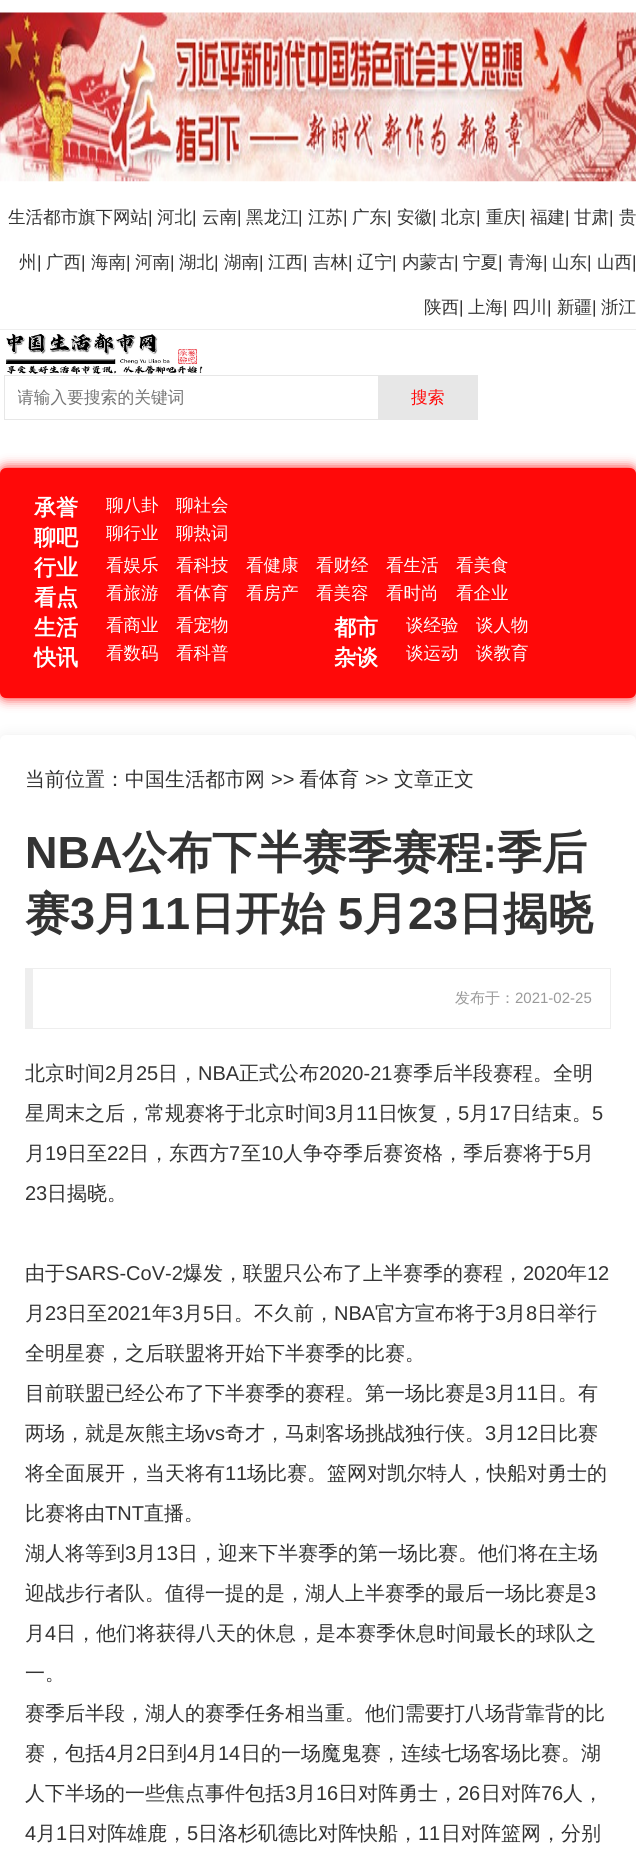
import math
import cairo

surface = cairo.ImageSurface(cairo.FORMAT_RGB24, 636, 1872)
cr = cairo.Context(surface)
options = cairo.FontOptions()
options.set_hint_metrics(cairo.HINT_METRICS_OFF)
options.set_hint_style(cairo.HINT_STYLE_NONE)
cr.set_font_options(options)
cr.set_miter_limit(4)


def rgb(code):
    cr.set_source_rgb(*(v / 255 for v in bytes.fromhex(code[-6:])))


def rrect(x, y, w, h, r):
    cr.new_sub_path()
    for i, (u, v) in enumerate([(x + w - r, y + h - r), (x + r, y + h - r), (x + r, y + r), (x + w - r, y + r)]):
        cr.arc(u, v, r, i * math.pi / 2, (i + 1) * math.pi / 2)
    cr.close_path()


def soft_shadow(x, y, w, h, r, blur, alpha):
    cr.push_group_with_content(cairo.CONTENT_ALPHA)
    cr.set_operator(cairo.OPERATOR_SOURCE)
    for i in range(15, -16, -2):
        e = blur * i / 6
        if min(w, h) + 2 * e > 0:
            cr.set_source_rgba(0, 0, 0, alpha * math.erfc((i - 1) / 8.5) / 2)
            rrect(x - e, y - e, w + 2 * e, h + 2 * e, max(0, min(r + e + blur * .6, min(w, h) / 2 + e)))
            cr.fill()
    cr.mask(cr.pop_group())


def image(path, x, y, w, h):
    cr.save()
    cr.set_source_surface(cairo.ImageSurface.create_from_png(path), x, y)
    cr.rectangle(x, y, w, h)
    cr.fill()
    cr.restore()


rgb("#ffffff")
cr.paint()
image("img/1.png", 0, 12, 636, 170)
rgb("#eeeeee")
cr.rectangle(0, 329, 636, 1)
cr.fill()
image("img/2.png", 6, 333, 197, 42)
cr.rectangle(4.5, 375.5, 374, 44)
rgb("#e7e7e7")
cr.set_line_width(1)
cr.stroke()
cr.rectangle(379, 375, 99, 45)
cr.fill()
rgb("#ff0909")
soft_shadow(0, 468, 636, 230, 6, 6, 1)
rgb("#ff0909")
rrect(0, 468, 636, 230, 6)
cr.fill()
rgb("#eeeeee")
soft_shadow(0, 735, 636, 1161, 6, 6, 1)
rgb("#ffffff")
rrect(0, 735, 636, 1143, 6)
cr.fill()
for x, y, w, h, color in [
    (25, 968, 586, 1, "#eeeeee"),
    (610, 968, 1, 61, "#eeeeee"),
    (25, 1028, 586, 1, "#eeeeee"),
    (25, 968, 8, 61, "#eeeeee"),
]:
    rgb(color)
    cr.rectangle(x, y, w, h)
    cr.fill()
cr.select_font_face("WenQuanYi Zen Hei Medium")
cr.set_font_size(17.5)
rgb("#333333")
cr.move_to(8, 223)
cr.show_text("生活都市旗下网站")
cr.select_font_face("Liberation Sans")
cr.move_to(148, 223)
cr.show_text("|")
cr.select_font_face("WenQuanYi Zen Hei Medium")
cr.move_to(157, 223)
cr.show_text("河北")
cr.select_font_face("Liberation Sans")
cr.move_to(192, 223)
cr.show_text("|")
cr.select_font_face("WenQuanYi Zen Hei Medium")
cr.move_to(202, 223)
cr.show_text("云南")
cr.select_font_face("Liberation Sans")
cr.move_to(237, 223)
cr.show_text("|")
cr.select_font_face("WenQuanYi Zen Hei Medium")
cr.move_to(246, 223)
cr.show_text("黑龙江")
cr.select_font_face("Liberation Sans")
cr.move_to(298, 223)
cr.show_text("|")
cr.select_font_face("WenQuanYi Zen Hei Medium")
cr.move_to(308, 223)
cr.show_text("江苏")
cr.select_font_face("Liberation Sans")
cr.move_to(343, 223)
cr.show_text("|")
cr.select_font_face("WenQuanYi Zen Hei Medium")
cr.move_to(352, 223)
cr.show_text("广东")
cr.select_font_face("Liberation Sans")
cr.move_to(387, 223)
cr.show_text("|")
cr.select_font_face("WenQuanYi Zen Hei Medium")
cr.move_to(397, 223)
cr.show_text("安徽")
cr.select_font_face("Liberation Sans")
cr.move_to(432, 223)
cr.show_text("|")
cr.select_font_face("WenQuanYi Zen Hei Medium")
cr.move_to(441, 223)
cr.show_text("北京")
cr.select_font_face("Liberation Sans")
cr.move_to(476, 223)
cr.show_text("|")
cr.select_font_face("WenQuanYi Zen Hei Medium")
cr.move_to(486, 223)
cr.show_text("重庆")
cr.select_font_face("Liberation Sans")
cr.move_to(521, 223)
cr.show_text("|")
cr.select_font_face("WenQuanYi Zen Hei Medium")
cr.move_to(530, 223)
cr.show_text("福建")
cr.select_font_face("Liberation Sans")
cr.move_to(565, 223)
cr.show_text("|")
cr.select_font_face("WenQuanYi Zen Hei Medium")
cr.move_to(574, 223)
cr.show_text("甘肃")
cr.select_font_face("Liberation Sans")
cr.move_to(609, 223)
cr.show_text("|")
cr.select_font_face("WenQuanYi Zen Hei Medium")
cr.move_to(619, 223)
cr.show_text("贵")
cr.move_to(19, 268)
cr.show_text("州")
cr.select_font_face("Liberation Sans")
cr.move_to(37, 268)
cr.show_text("|")
cr.select_font_face("WenQuanYi Zen Hei Medium")
cr.move_to(46, 268)
cr.show_text("广西")
cr.select_font_face("Liberation Sans")
cr.move_to(81, 268)
cr.show_text("|")
cr.select_font_face("WenQuanYi Zen Hei Medium")
cr.move_to(91, 268)
cr.show_text("海南")
cr.select_font_face("Liberation Sans")
cr.move_to(126, 268)
cr.show_text("|")
cr.select_font_face("WenQuanYi Zen Hei Medium")
cr.move_to(135, 268)
cr.show_text("河南")
cr.select_font_face("Liberation Sans")
cr.move_to(170, 268)
cr.show_text("|")
cr.select_font_face("WenQuanYi Zen Hei Medium")
cr.move_to(179, 268)
cr.show_text("湖北")
cr.select_font_face("Liberation Sans")
cr.move_to(214, 268)
cr.show_text("|")
cr.select_font_face("WenQuanYi Zen Hei Medium")
cr.move_to(224, 268)
cr.show_text("湖南")
cr.select_font_face("Liberation Sans")
cr.move_to(259, 268)
cr.show_text("|")
cr.select_font_face("WenQuanYi Zen Hei Medium")
cr.move_to(268, 268)
cr.show_text("江西")
cr.select_font_face("Liberation Sans")
cr.move_to(303, 268)
cr.show_text("|")
cr.select_font_face("WenQuanYi Zen Hei Medium")
cr.move_to(313, 268)
cr.show_text("吉林")
cr.select_font_face("Liberation Sans")
cr.move_to(348, 268)
cr.show_text("|")
cr.select_font_face("WenQuanYi Zen Hei Medium")
cr.move_to(357, 268)
cr.show_text("辽宁")
cr.select_font_face("Liberation Sans")
cr.move_to(392, 268)
cr.show_text("|")
cr.select_font_face("WenQuanYi Zen Hei Medium")
cr.move_to(402, 268)
cr.show_text("内蒙古")
cr.select_font_face("Liberation Sans")
cr.move_to(454, 268)
cr.show_text("|")
cr.select_font_face("WenQuanYi Zen Hei Medium")
cr.move_to(463, 268)
cr.show_text("宁夏")
cr.select_font_face("Liberation Sans")
cr.move_to(498, 268)
cr.show_text("|")
cr.select_font_face("WenQuanYi Zen Hei Medium")
cr.move_to(508, 268)
cr.show_text("青海")
cr.select_font_face("Liberation Sans")
cr.move_to(543, 268)
cr.show_text("|")
cr.select_font_face("WenQuanYi Zen Hei Medium")
cr.move_to(552, 268)
cr.show_text("山东")
cr.select_font_face("Liberation Sans")
cr.move_to(587, 268)
cr.show_text("|")
cr.select_font_face("WenQuanYi Zen Hei Medium")
cr.move_to(597, 268)
cr.show_text("山西")
cr.select_font_face("Liberation Sans")
cr.move_to(632, 268)
cr.show_text("|")
cr.select_font_face("WenQuanYi Zen Hei Medium")
cr.move_to(424, 313)
cr.show_text("陕西")
cr.select_font_face("Liberation Sans")
cr.move_to(459, 313)
cr.show_text("|")
cr.select_font_face("WenQuanYi Zen Hei Medium")
cr.move_to(468, 313)
cr.show_text("上海")
cr.select_font_face("Liberation Sans")
cr.move_to(503, 313)
cr.show_text("|")
cr.select_font_face("WenQuanYi Zen Hei Medium")
cr.move_to(512, 313)
cr.show_text("四川")
cr.select_font_face("Liberation Sans")
cr.move_to(547, 313)
cr.show_text("|")
cr.select_font_face("WenQuanYi Zen Hei Medium")
cr.move_to(557, 313)
cr.show_text("新疆")
cr.select_font_face("Liberation Sans")
cr.move_to(592, 313)
cr.show_text("|")
cr.select_font_face("WenQuanYi Zen Hei Medium")
cr.move_to(601, 313)
cr.show_text("浙江")
cr.save()
cr.rectangle(18, 388, 347, 22)
cr.clip()
cr.set_font_size(16.75)
rgb("#757575")
cr.move_to(17, 403)
cr.show_text("请输入要搜索的关键词")
cr.restore()
cr.set_font_size(16.75)
rgb("#ff0909")
cr.move_to(411, 403)
cr.show_text("搜索")
cr.select_font_face("WenQuanYi Zen Hei", cairo.FONT_SLANT_NORMAL, cairo.FONT_WEIGHT_BOLD)
cr.set_font_size(22)
rgb("#ffffff")
cr.move_to(34, 515)
cr.show_text("承誉")
cr.move_to(34, 545)
cr.show_text("聊吧")
cr.select_font_face("WenQuanYi Zen Hei Medium")
cr.set_font_size(17.5)
for x, y, s in [
    (106, 511, "聊八卦"),
    (176, 511, "聊社会"),
    (106, 539, "聊行业"),
    (176, 539, "聊热词"),
]:
    cr.move_to(x, y)
    cr.show_text(s)
cr.select_font_face("WenQuanYi Zen Hei", cairo.FONT_SLANT_NORMAL, cairo.FONT_WEIGHT_BOLD)
cr.set_font_size(22)
cr.move_to(34, 575)
cr.show_text("行业")
cr.move_to(34, 605)
cr.show_text("看点")
cr.select_font_face("WenQuanYi Zen Hei Medium")
cr.set_font_size(17.5)
for x, y, s in [
    (106, 571, "看娱乐"),
    (176, 571, "看科技"),
    (246, 571, "看健康"),
    (316, 571, "看财经"),
    (386, 571, "看生活"),
    (456, 571, "看美食"),
    (106, 599, "看旅游"),
    (176, 599, "看体育"),
    (246, 599, "看房产"),
    (316, 599, "看美容"),
    (386, 599, "看时尚"),
    (456, 599, "看企业"),
]:
    cr.move_to(x, y)
    cr.show_text(s)
cr.select_font_face("WenQuanYi Zen Hei", cairo.FONT_SLANT_NORMAL, cairo.FONT_WEIGHT_BOLD)
cr.set_font_size(22)
cr.move_to(34, 635)
cr.show_text("生活")
cr.move_to(34, 665)
cr.show_text("快讯")
cr.select_font_face("WenQuanYi Zen Hei Medium")
cr.set_font_size(17.5)
for x, y, s in [
    (106, 631, "看商业"),
    (176, 631, "看宠物"),
    (106, 659, "看数码"),
    (176, 659, "看科普"),
]:
    cr.move_to(x, y)
    cr.show_text(s)
cr.select_font_face("WenQuanYi Zen Hei", cairo.FONT_SLANT_NORMAL, cairo.FONT_WEIGHT_BOLD)
cr.set_font_size(22)
cr.move_to(334, 635)
cr.show_text("都市")
cr.move_to(334, 665)
cr.show_text("杂谈")
cr.select_font_face("WenQuanYi Zen Hei Medium")
cr.set_font_size(17.5)
for x, y, s in [
    (406, 631, "谈经验"),
    (476, 631, "谈人物"),
    (406, 659, "谈运动"),
    (476, 659, "谈教育"),
]:
    cr.move_to(x, y)
    cr.show_text(s)
cr.set_font_size(20)
rgb("#333333")
cr.move_to(25, 786)
cr.show_text("当前位置：中国生活都市网")
cr.select_font_face("Liberation Sans")
cr.move_to(271, 786)
cr.show_text(">>")
cr.select_font_face("WenQuanYi Zen Hei Medium")
cr.move_to(299, 786)
cr.show_text("看体育")
cr.select_font_face("Liberation Sans")
cr.move_to(365, 786)
cr.show_text(">>")
cr.select_font_face("WenQuanYi Zen Hei Medium")
cr.move_to(394, 786)
cr.show_text("文章正文")
cr.select_font_face("Liberation Sans", cairo.FONT_SLANT_NORMAL, cairo.FONT_WEIGHT_BOLD)
cr.set_font_size(45)
cr.move_to(25, 868)
cr.show_text("NBA")
cr.select_font_face("WenQuanYi Zen Hei", cairo.FONT_SLANT_NORMAL, cairo.FONT_WEIGHT_BOLD)
cr.move_to(122, 868)
cr.show_text("公布下半赛季赛程")
cr.select_font_face("Liberation Sans", cairo.FONT_SLANT_NORMAL, cairo.FONT_WEIGHT_BOLD)
cr.move_to(482, 868)
cr.show_text(":")
cr.select_font_face("WenQuanYi Zen Hei", cairo.FONT_SLANT_NORMAL, cairo.FONT_WEIGHT_BOLD)
cr.move_to(497, 868)
cr.show_text("季后")
cr.move_to(25, 929)
cr.show_text("赛")
cr.select_font_face("Liberation Sans", cairo.FONT_SLANT_NORMAL, cairo.FONT_WEIGHT_BOLD)
cr.move_to(70, 929)
cr.show_text("3")
cr.select_font_face("WenQuanYi Zen Hei", cairo.FONT_SLANT_NORMAL, cairo.FONT_WEIGHT_BOLD)
cr.move_to(95, 929)
cr.show_text("月")
cr.select_font_face("Liberation Sans", cairo.FONT_SLANT_NORMAL, cairo.FONT_WEIGHT_BOLD)
cr.move_to(140, 929)
cr.show_text("11")
cr.select_font_face("WenQuanYi Zen Hei", cairo.FONT_SLANT_NORMAL, cairo.FONT_WEIGHT_BOLD)
cr.move_to(190, 929)
cr.show_text("日开始")
cr.select_font_face("Liberation Sans", cairo.FONT_SLANT_NORMAL, cairo.FONT_WEIGHT_BOLD)
cr.move_to(338, 929)
cr.show_text("5")
cr.select_font_face("WenQuanYi Zen Hei", cairo.FONT_SLANT_NORMAL, cairo.FONT_WEIGHT_BOLD)
cr.move_to(363, 929)
cr.show_text("月")
cr.select_font_face("Liberation Sans", cairo.FONT_SLANT_NORMAL, cairo.FONT_WEIGHT_BOLD)
cr.move_to(408, 929)
cr.show_text("23")
cr.select_font_face("WenQuanYi Zen Hei", cairo.FONT_SLANT_NORMAL, cairo.FONT_WEIGHT_BOLD)
cr.move_to(458, 929)
cr.show_text("日揭晓")
cr.select_font_face("WenQuanYi Zen Hei Medium")
cr.set_font_size(15)
rgb("#999999")
cr.move_to(455, 1003)
cr.show_text("发布于：")
cr.select_font_face("Liberation Sans")
cr.move_to(515, 1003)
cr.show_text("2021-02-25")
cr.select_font_face("WenQuanYi Zen Hei Medium")
cr.set_font_size(20)
rgb("#333333")
cr.move_to(25, 1080)
cr.show_text("北京时间")
cr.select_font_face("Liberation Sans")
cr.move_to(105, 1080)
cr.show_text("2")
cr.select_font_face("WenQuanYi Zen Hei Medium")
cr.move_to(116, 1080)
cr.show_text("月")
cr.select_font_face("Liberation Sans")
cr.move_to(136, 1080)
cr.show_text("25")
cr.select_font_face("WenQuanYi Zen Hei Medium")
cr.move_to(158, 1080)
cr.show_text("日，")
cr.select_font_face("Liberation Sans")
cr.move_to(198, 1080)
cr.show_text("NBA")
cr.select_font_face("WenQuanYi Zen Hei Medium")
cr.move_to(239, 1080)
cr.show_text("正式公布")
cr.select_font_face("Liberation Sans")
cr.move_to(319, 1080)
cr.show_text("2020-21")
cr.select_font_face("WenQuanYi Zen Hei Medium")
cr.move_to(393, 1080)
cr.show_text("赛季后半段赛程。全明")
cr.move_to(25, 1120)
cr.show_text("星周末之后，常规赛将于北京时间")
cr.select_font_face("Liberation Sans")
cr.move_to(325, 1120)
cr.show_text("3")
cr.select_font_face("WenQuanYi Zen Hei Medium")
cr.move_to(336, 1120)
cr.show_text("月")
cr.select_font_face("Liberation Sans")
cr.move_to(356, 1120)
cr.show_text("11")
cr.select_font_face("WenQuanYi Zen Hei Medium")
cr.move_to(378, 1120)
cr.show_text("日恢复，")
cr.select_font_face("Liberation Sans")
cr.move_to(458, 1120)
cr.show_text("5")
cr.select_font_face("WenQuanYi Zen Hei Medium")
cr.move_to(469, 1120)
cr.show_text("月")
cr.select_font_face("Liberation Sans")
cr.move_to(489, 1120)
cr.show_text("17")
cr.select_font_face("WenQuanYi Zen Hei Medium")
cr.move_to(512, 1120)
cr.show_text("日结束。")
cr.select_font_face("Liberation Sans")
cr.move_to(592, 1120)
cr.show_text("5")
cr.select_font_face("WenQuanYi Zen Hei Medium")
cr.move_to(25, 1160)
cr.show_text("月")
cr.select_font_face("Liberation Sans")
cr.move_to(45, 1160)
cr.show_text("19")
cr.select_font_face("WenQuanYi Zen Hei Medium")
cr.move_to(67, 1160)
cr.show_text("日至")
cr.select_font_face("Liberation Sans")
cr.move_to(107, 1160)
cr.show_text("22")
cr.select_font_face("WenQuanYi Zen Hei Medium")
cr.move_to(129, 1160)
cr.show_text("日，东西方")
cr.select_font_face("Liberation Sans")
cr.move_to(229, 1160)
cr.show_text("7")
cr.select_font_face("WenQuanYi Zen Hei Medium")
cr.move_to(241, 1160)
cr.show_text("至")
cr.select_font_face("Liberation Sans")
cr.move_to(261, 1160)
cr.show_text("10")
cr.select_font_face("WenQuanYi Zen Hei Medium")
cr.move_to(283, 1160)
cr.show_text("人争夺季后赛资格，季后赛将于")
cr.select_font_face("Liberation Sans")
cr.move_to(563, 1160)
cr.show_text("5")
cr.select_font_face("WenQuanYi Zen Hei Medium")
cr.move_to(574, 1160)
cr.show_text("月")
cr.select_font_face("Liberation Sans")
cr.move_to(25, 1200)
cr.show_text("23")
cr.select_font_face("WenQuanYi Zen Hei Medium")
cr.move_to(47, 1200)
cr.show_text("日揭晓。")
cr.move_to(25, 1280)
cr.show_text("由于")
cr.select_font_face("Liberation Sans")
cr.move_to(65, 1280)
cr.show_text("SARS-CoV-2")
cr.select_font_face("WenQuanYi Zen Hei Medium")
cr.move_to(183, 1280)
cr.show_text("爆发，联盟只公布了上半赛季的赛程，")
cr.select_font_face("Liberation Sans")
cr.move_to(523, 1280)
cr.show_text("2020")
cr.select_font_face("WenQuanYi Zen Hei Medium")
cr.move_to(567, 1280)
cr.show_text("年")
cr.select_font_face("Liberation Sans")
cr.move_to(587, 1280)
cr.show_text("12")
cr.select_font_face("WenQuanYi Zen Hei Medium")
cr.move_to(25, 1320)
cr.show_text("月")
cr.select_font_face("Liberation Sans")
cr.move_to(45, 1320)
cr.show_text("23")
cr.select_font_face("WenQuanYi Zen Hei Medium")
cr.move_to(67, 1320)
cr.show_text("日至")
cr.select_font_face("Liberation Sans")
cr.move_to(107, 1320)
cr.show_text("2021")
cr.select_font_face("WenQuanYi Zen Hei Medium")
cr.move_to(152, 1320)
cr.show_text("年")
cr.select_font_face("Liberation Sans")
cr.move_to(172, 1320)
cr.show_text("3")
cr.select_font_face("WenQuanYi Zen Hei Medium")
cr.move_to(183, 1320)
cr.show_text("月")
cr.select_font_face("Liberation Sans")
cr.move_to(203, 1320)
cr.show_text("5")
cr.select_font_face("WenQuanYi Zen Hei Medium")
cr.move_to(214, 1320)
cr.show_text("日。不久前，")
cr.select_font_face("Liberation Sans")
cr.move_to(334, 1320)
cr.show_text("NBA")
cr.select_font_face("WenQuanYi Zen Hei Medium")
cr.move_to(375, 1320)
cr.show_text("官方宣布将于")
cr.select_font_face("Liberation Sans")
cr.move_to(495, 1320)
cr.show_text("3")
cr.select_font_face("WenQuanYi Zen Hei Medium")
cr.move_to(506, 1320)
cr.show_text("月")
cr.select_font_face("Liberation Sans")
cr.move_to(526, 1320)
cr.show_text("8")
cr.select_font_face("WenQuanYi Zen Hei Medium")
for x, y, s in [
    (537, 1320, "日举行"),
    (25, 1360, "全明星赛，之后联盟将开始下半赛季的比赛。"),
    (25, 1400, "目前联盟已经公布了下半赛季的赛程。第一场比赛是"),
]:
    cr.move_to(x, y)
    cr.show_text(s)
cr.select_font_face("Liberation Sans")
cr.move_to(485, 1400)
cr.show_text("3")
cr.select_font_face("WenQuanYi Zen Hei Medium")
cr.move_to(496, 1400)
cr.show_text("月")
cr.select_font_face("Liberation Sans")
cr.move_to(516, 1400)
cr.show_text("11")
cr.select_font_face("WenQuanYi Zen Hei Medium")
cr.move_to(538, 1400)
cr.show_text("日。有")
cr.move_to(25, 1440)
cr.show_text("两场，就是灰熊主场")
cr.select_font_face("Liberation Sans")
cr.move_to(205, 1440)
cr.show_text("vs")
cr.select_font_face("WenQuanYi Zen Hei Medium")
cr.move_to(225, 1440)
cr.show_text("奇才，马刺客场挑战独行侠。")
cr.select_font_face("Liberation Sans")
cr.move_to(485, 1440)
cr.show_text("3")
cr.select_font_face("WenQuanYi Zen Hei Medium")
cr.move_to(496, 1440)
cr.show_text("月")
cr.select_font_face("Liberation Sans")
cr.move_to(516, 1440)
cr.show_text("12")
cr.select_font_face("WenQuanYi Zen Hei Medium")
cr.move_to(538, 1440)
cr.show_text("日比赛")
cr.move_to(25, 1480)
cr.show_text("将全面展开，当天将有")
cr.select_font_face("Liberation Sans")
cr.move_to(225, 1480)
cr.show_text("11")
cr.select_font_face("WenQuanYi Zen Hei Medium")
cr.move_to(247, 1480)
cr.show_text("场比赛。篮网对凯尔特人，快船对勇士的")
cr.move_to(25, 1520)
cr.show_text("比赛将由")
cr.select_font_face("Liberation Sans")
cr.move_to(105, 1520)
cr.show_text("TNT")
cr.select_font_face("WenQuanYi Zen Hei Medium")
cr.move_to(144, 1520)
cr.show_text("直播。")
cr.move_to(25, 1560)
cr.show_text("湖人将等到")
cr.select_font_face("Liberation Sans")
cr.move_to(125, 1560)
cr.show_text("3")
cr.select_font_face("WenQuanYi Zen Hei Medium")
cr.move_to(136, 1560)
cr.show_text("月")
cr.select_font_face("Liberation Sans")
cr.move_to(156, 1560)
cr.show_text("13")
cr.select_font_face("WenQuanYi Zen Hei Medium")
cr.move_to(178, 1560)
cr.show_text("日，迎来下半赛季的第一场比赛。他们将在主场")
cr.move_to(25, 1600)
cr.show_text("迎战步行者队。值得一提的是，湖人上半赛季的最后一场比赛是")
cr.select_font_face("Liberation Sans")
cr.move_to(585, 1600)
cr.show_text("3")
cr.select_font_face("WenQuanYi Zen Hei Medium")
cr.move_to(25, 1640)
cr.show_text("月")
cr.select_font_face("Liberation Sans")
cr.move_to(45, 1640)
cr.show_text("4")
cr.select_font_face("WenQuanYi Zen Hei Medium")
for x, y, s in [
    (56, 1640, "日，他们将获得八天的休息，是本赛季休息时间最长的球队之"),
    (25, 1680, "一。"),
    (25, 1720, "赛季后半段，湖人的赛季任务相当重。他们需要打八场背靠背的比"),
    (25, 1760, "赛，包括"),
]:
    cr.move_to(x, y)
    cr.show_text(s)
cr.select_font_face("Liberation Sans")
cr.move_to(105, 1760)
cr.show_text("4")
cr.select_font_face("WenQuanYi Zen Hei Medium")
cr.move_to(116, 1760)
cr.show_text("月")
cr.select_font_face("Liberation Sans")
cr.move_to(136, 1760)
cr.show_text("2")
cr.select_font_face("WenQuanYi Zen Hei Medium")
cr.move_to(147, 1760)
cr.show_text("日到")
cr.select_font_face("Liberation Sans")
cr.move_to(187, 1760)
cr.show_text("4")
cr.select_font_face("WenQuanYi Zen Hei Medium")
cr.move_to(198, 1760)
cr.show_text("月")
cr.select_font_face("Liberation Sans")
cr.move_to(218, 1760)
cr.show_text("14")
cr.select_font_face("WenQuanYi Zen Hei Medium")
cr.move_to(241, 1760)
cr.show_text("日的一场魔鬼赛，连续七场客场比赛。湖")
cr.move_to(25, 1800)
cr.show_text("人下半场的一些焦点事件包括")
cr.select_font_face("Liberation Sans")
cr.move_to(285, 1800)
cr.show_text("3")
cr.select_font_face("WenQuanYi Zen Hei Medium")
cr.move_to(296, 1800)
cr.show_text("月")
cr.select_font_face("Liberation Sans")
cr.move_to(316, 1800)
cr.show_text("16")
cr.select_font_face("WenQuanYi Zen Hei Medium")
cr.move_to(338, 1800)
cr.show_text("日对阵勇士，")
cr.select_font_face("Liberation Sans")
cr.move_to(458, 1800)
cr.show_text("26")
cr.select_font_face("WenQuanYi Zen Hei Medium")
cr.move_to(481, 1800)
cr.show_text("日对阵")
cr.select_font_face("Liberation Sans")
cr.move_to(541, 1800)
cr.show_text("76")
cr.select_font_face("WenQuanYi Zen Hei Medium")
cr.move_to(563, 1800)
cr.show_text("人，")
cr.select_font_face("Liberation Sans")
cr.move_to(25, 1840)
cr.show_text("4")
cr.select_font_face("WenQuanYi Zen Hei Medium")
cr.move_to(36, 1840)
cr.show_text("月")
cr.select_font_face("Liberation Sans")
cr.move_to(56, 1840)
cr.show_text("1")
cr.select_font_face("WenQuanYi Zen Hei Medium")
cr.move_to(67, 1840)
cr.show_text("日对阵雄鹿，")
cr.select_font_face("Liberation Sans")
cr.move_to(187, 1840)
cr.show_text("5")
cr.select_font_face("WenQuanYi Zen Hei Medium")
cr.move_to(198, 1840)
cr.show_text("日洛杉矶德比对阵快船，")
cr.select_font_face("Liberation Sans")
cr.move_to(418, 1840)
cr.show_text("11")
cr.select_font_face("WenQuanYi Zen Hei Medium")
cr.move_to(441, 1840)
cr.show_text("日对阵篮网，分别")
surface.write_to_png("page.png")
